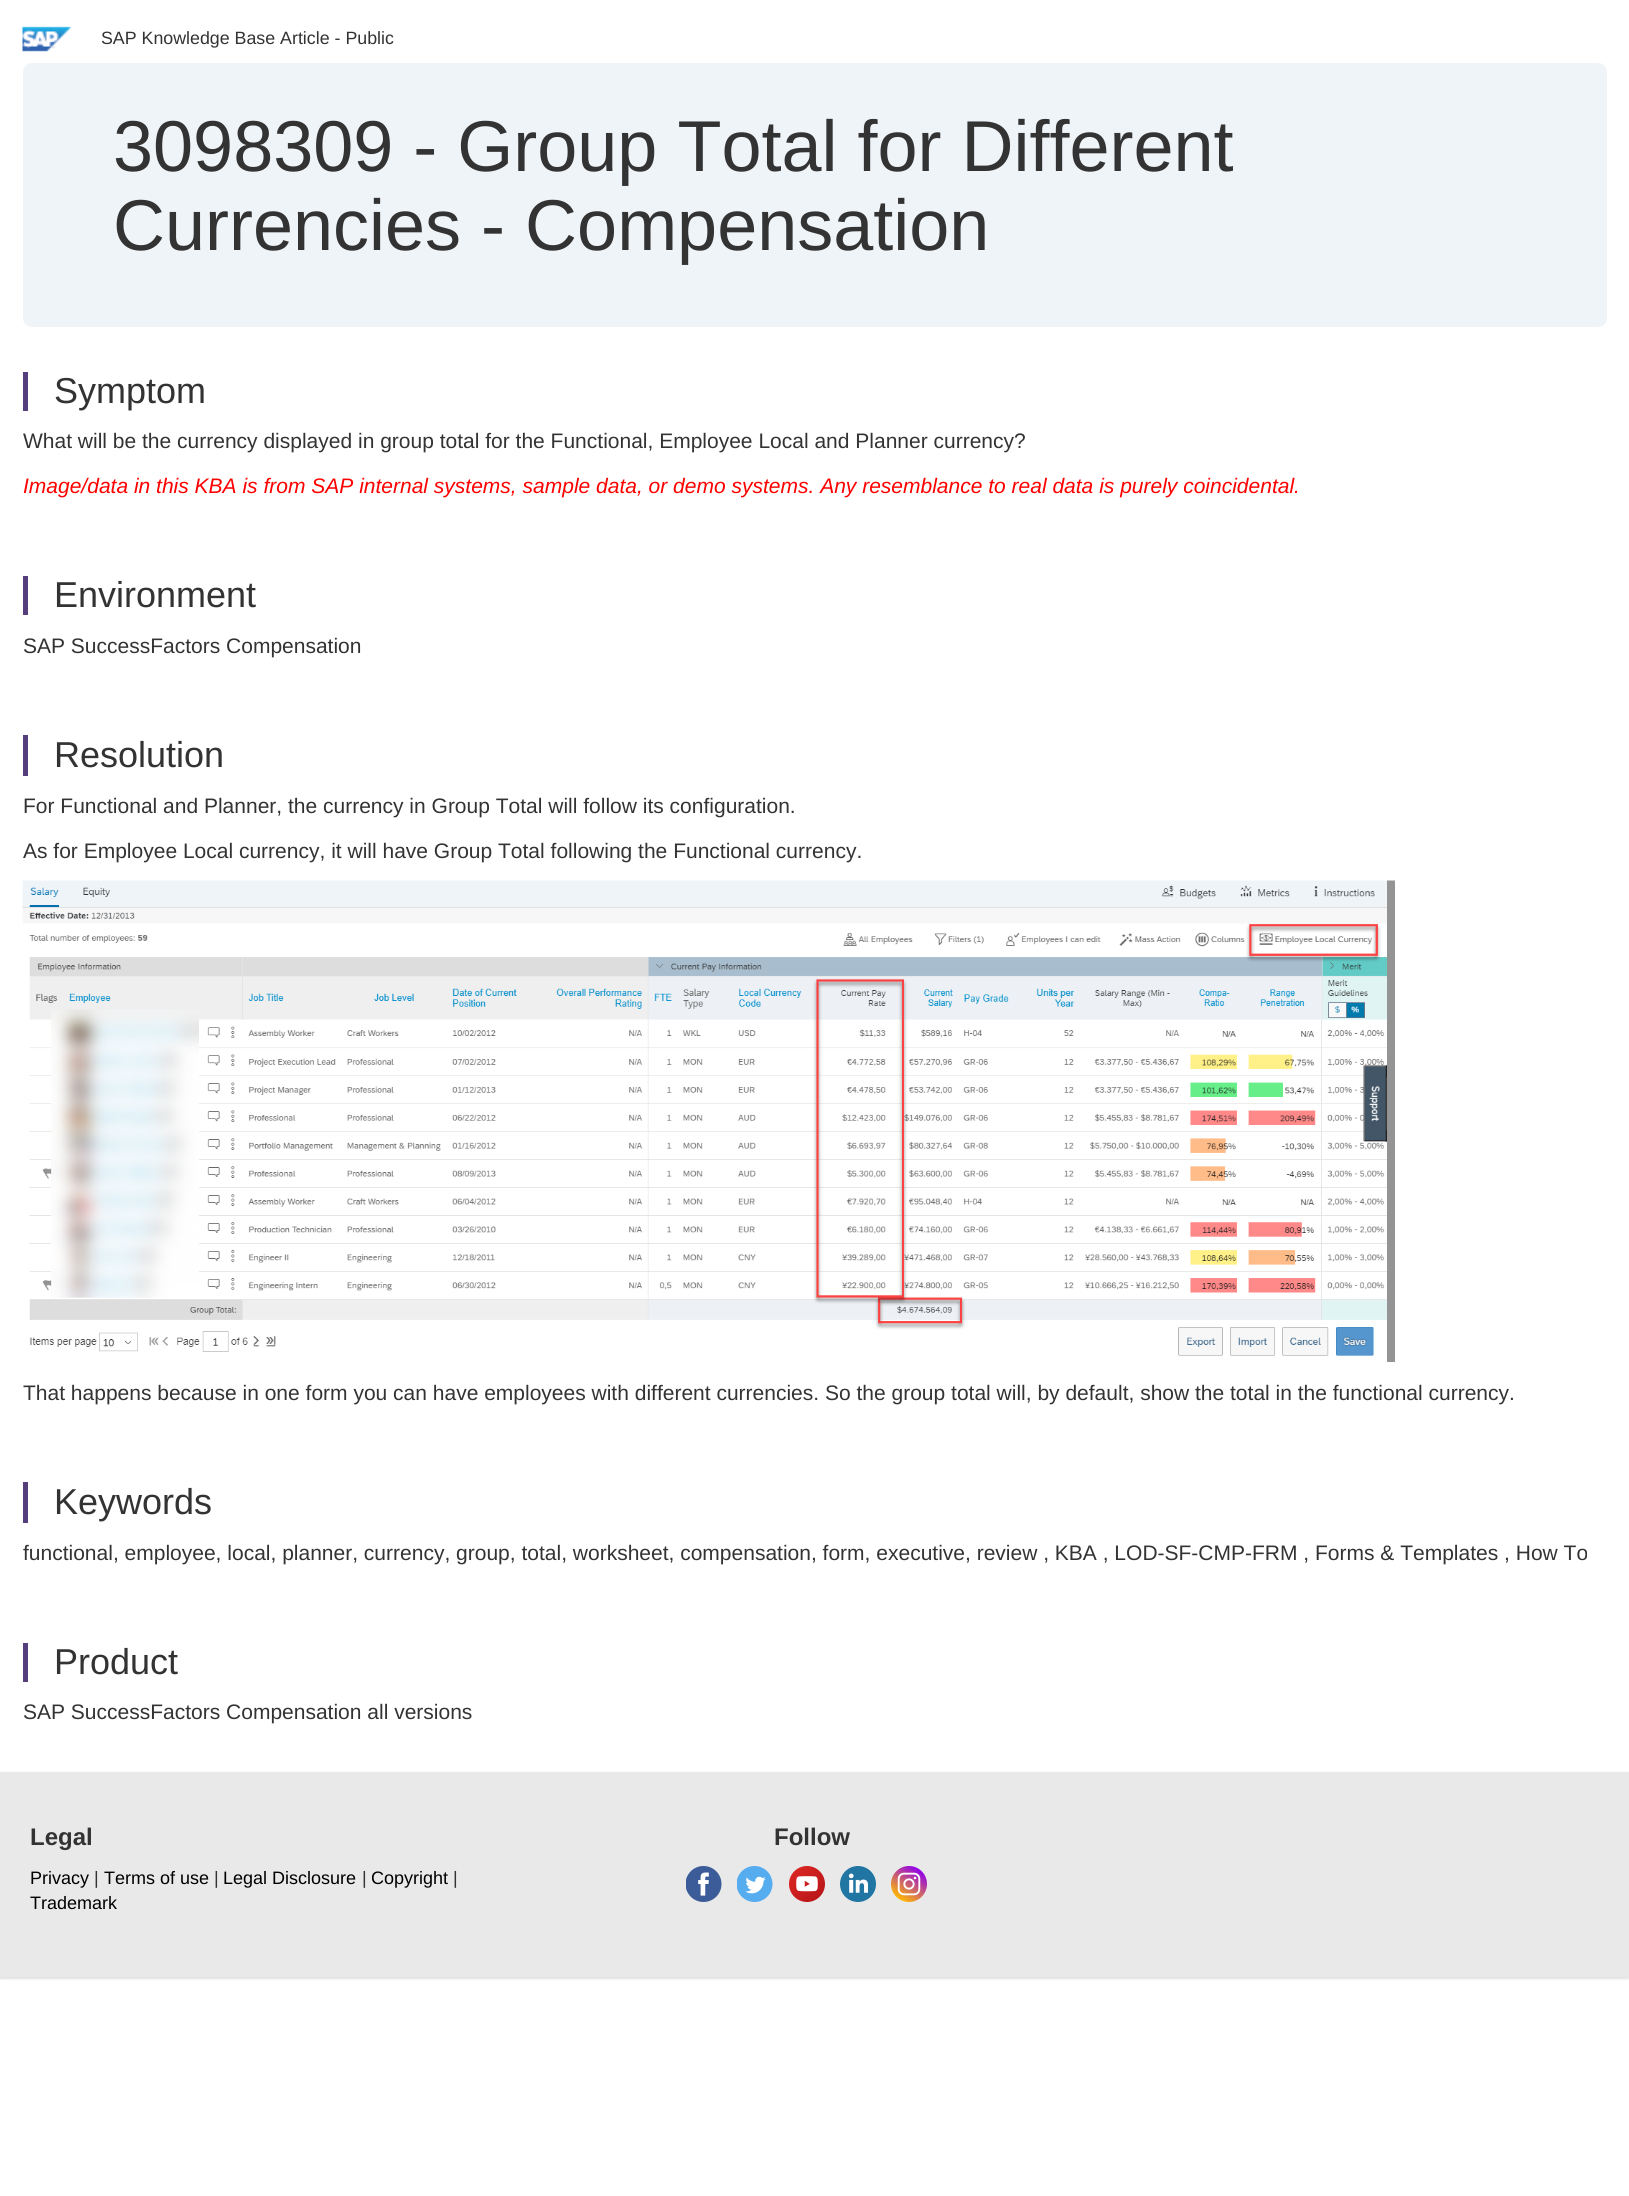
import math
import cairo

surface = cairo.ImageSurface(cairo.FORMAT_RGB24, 1629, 2196)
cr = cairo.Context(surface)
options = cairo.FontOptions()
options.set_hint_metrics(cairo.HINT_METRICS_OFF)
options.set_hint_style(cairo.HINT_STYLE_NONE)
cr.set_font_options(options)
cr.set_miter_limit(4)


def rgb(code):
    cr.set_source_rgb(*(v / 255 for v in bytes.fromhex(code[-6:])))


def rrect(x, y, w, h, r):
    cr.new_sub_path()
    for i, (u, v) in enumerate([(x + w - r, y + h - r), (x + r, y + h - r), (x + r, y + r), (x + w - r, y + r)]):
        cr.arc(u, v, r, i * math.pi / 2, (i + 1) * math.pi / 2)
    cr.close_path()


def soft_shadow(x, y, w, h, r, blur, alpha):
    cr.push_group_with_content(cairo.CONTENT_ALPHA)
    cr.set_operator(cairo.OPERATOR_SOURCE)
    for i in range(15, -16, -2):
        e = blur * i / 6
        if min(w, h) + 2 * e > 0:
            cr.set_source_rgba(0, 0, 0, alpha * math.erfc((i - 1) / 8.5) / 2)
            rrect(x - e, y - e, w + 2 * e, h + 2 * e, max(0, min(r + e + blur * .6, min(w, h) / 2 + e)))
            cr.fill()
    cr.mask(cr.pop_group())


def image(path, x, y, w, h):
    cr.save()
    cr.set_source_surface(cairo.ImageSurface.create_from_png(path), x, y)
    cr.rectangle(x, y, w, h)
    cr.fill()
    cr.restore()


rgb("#ffffff")
cr.paint()
image("img/1.png", 22, 26, 49, 26)
rgb("#eff4f9")
rrect(23, 63, 1584, 264, 9)
cr.fill()
for x, y, w, h, color in [
    (23, 372, 5, 39, "#563d7c"),
    (23, 576, 5, 39, "#563d7c"),
    (23, 735, 5, 41, "#563d7c"),
]:
    rgb(color)
    cr.rectangle(x, y, w, h)
    cr.fill()
image("img/2.png", 22, 880, 1373, 482)
cr.rectangle(23, 1482, 5, 41)
cr.fill()
cr.rectangle(23, 1643, 5, 39)
cr.fill()
rgb("#000000")
soft_shadow(0, 1773, 1629, 206, 0, 1, 0.12)
rgb("#e9e9e9")
cr.rectangle(0, 1772, 1629, 205)
cr.fill()
image("img/3.png", 686, 1866, 36, 36)
image("img/4.png", 737, 1866, 36, 36)
image("img/5.png", 789, 1866, 36, 36)
image("img/6.png", 840, 1866, 36, 36)
image("img/7.png", 891, 1866, 36, 36)
cr.select_font_face("Liberation Sans")
cr.set_font_size(17.8)
rgb("#333333")
cr.move_to(101, 44)
cr.show_text("SAP Knowledge Base Article - Public")
cr.set_font_size(72)
cr.move_to(113, 171)
cr.show_text("3098309 - Group Total for Different")
cr.move_to(113, 250)
cr.show_text("Currencies - Compensation")
cr.set_font_size(36)
cr.move_to(54, 403)
cr.show_text("Symptom")
cr.set_font_size(21)
cr.move_to(23, 448)
cr.show_text("What will be the currency displayed in group total for the Functional, Employee Local and Planner currency?")
cr.select_font_face("Liberation Sans", cairo.FONT_SLANT_ITALIC)
rgb("#ff0000")
cr.move_to(23, 493)
cr.show_text("Image/data in this KBA is from SAP internal systems, sample data, or demo systems. Any resemblance to real data is purely coincidental.")
cr.select_font_face("Liberation Sans")
cr.set_font_size(36)
rgb("#333333")
cr.move_to(54, 607)
cr.show_text("Environment")
cr.set_font_size(21)
cr.move_to(23, 653)
cr.show_text("SAP SuccessFactors Compensation")
cr.set_font_size(36)
cr.move_to(54, 767)
cr.show_text("Resolution")
cr.set_font_size(21)
for x, y, s in [
    (23, 813, "For Functional and Planner, the currency in Group Total will follow its configuration."),
    (23, 858, "As for Employee Local currency, it will have Group Total following the Functional currency."),
    (23, 1400, "That happens because in one form you can have employees with different currencies. So the group total will, by default, show the total in the functional currency."),
]:
    cr.move_to(x, y)
    cr.show_text(s)
cr.set_font_size(36)
cr.move_to(54, 1514)
cr.show_text("Keywords")
cr.set_font_size(21)
cr.move_to(23, 1560)
cr.show_text("functional, employee, local, planner, currency, group, total, worksheet, compensation, form, executive, review , KBA , LOD-SF-CMP-FRM , Forms & Templates , How To")
cr.set_font_size(36)
cr.move_to(54, 1674)
cr.show_text("Product")
cr.set_font_size(21)
cr.move_to(23, 1719)
cr.show_text("SAP SuccessFactors Compensation all versions")
cr.select_font_face("Liberation Sans", cairo.FONT_SLANT_NORMAL, cairo.FONT_WEIGHT_BOLD)
cr.set_font_size(24)
cr.move_to(30, 1845)
cr.show_text("Legal")
cr.select_font_face("Liberation Sans")
cr.set_font_size(18)
rgb("#000000")
cr.move_to(30, 1884)
cr.show_text("Privacy")
rgb("#333333")
cr.move_to(94, 1884)
cr.show_text("|")
rgb("#000000")
cr.move_to(104, 1884)
cr.show_text("Terms of use")
rgb("#333333")
cr.move_to(214, 1884)
cr.show_text("|")
rgb("#000000")
cr.move_to(223, 1884)
cr.show_text("Legal Disclosure")
rgb("#333333")
cr.move_to(362, 1884)
cr.show_text("|")
rgb("#000000")
cr.move_to(371, 1884)
cr.show_text("Copyright")
rgb("#333333")
cr.move_to(453, 1884)
cr.show_text("|")
rgb("#000000")
cr.move_to(30, 1909)
cr.show_text("Trademark")
cr.select_font_face("Liberation Sans", cairo.FONT_SLANT_NORMAL, cairo.FONT_WEIGHT_BOLD)
cr.set_font_size(24)
rgb("#333333")
cr.move_to(774, 1845)
cr.show_text("Follow")
surface.write_to_png("page.png")
